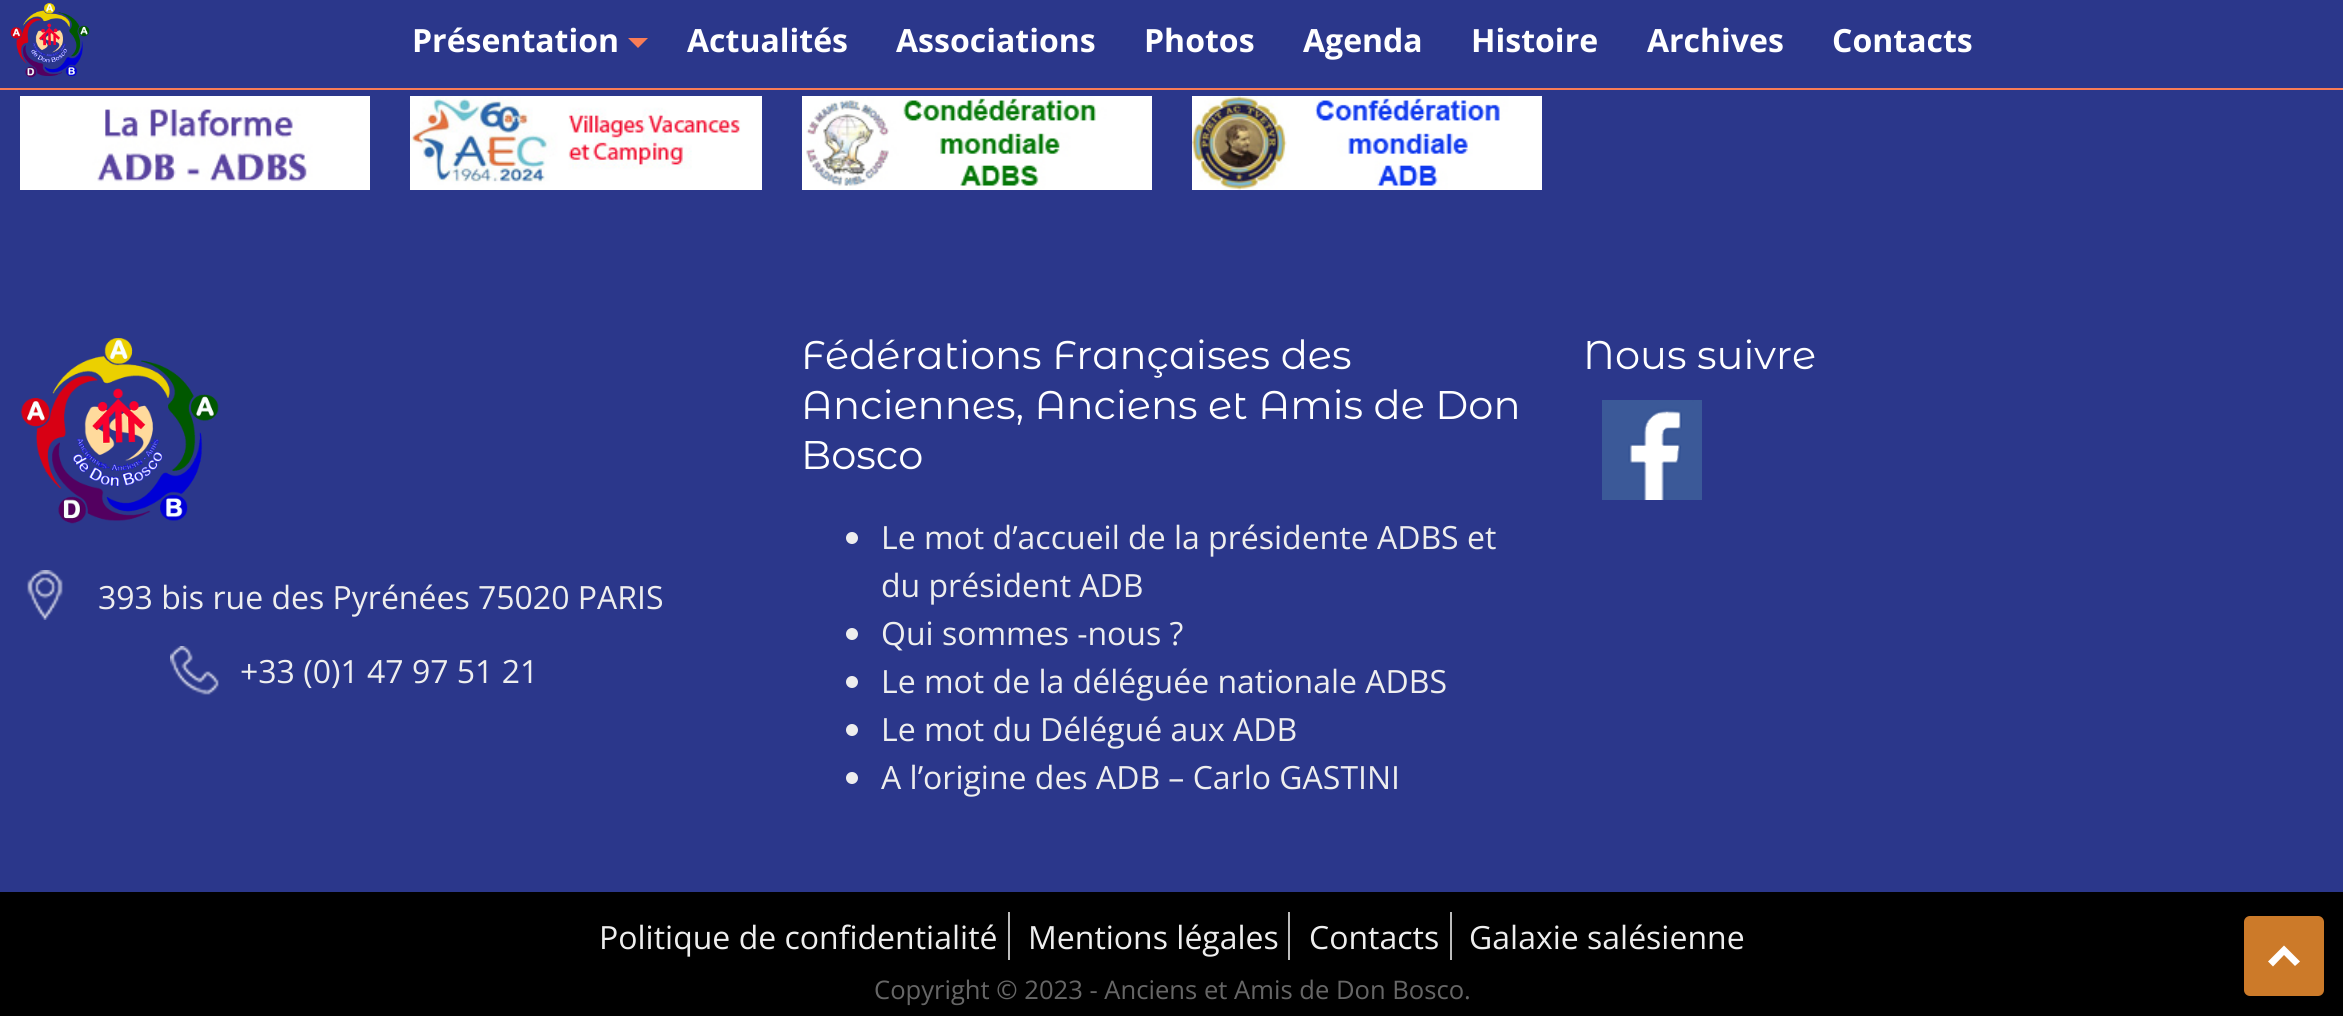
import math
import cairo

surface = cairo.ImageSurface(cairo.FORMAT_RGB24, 2343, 1016)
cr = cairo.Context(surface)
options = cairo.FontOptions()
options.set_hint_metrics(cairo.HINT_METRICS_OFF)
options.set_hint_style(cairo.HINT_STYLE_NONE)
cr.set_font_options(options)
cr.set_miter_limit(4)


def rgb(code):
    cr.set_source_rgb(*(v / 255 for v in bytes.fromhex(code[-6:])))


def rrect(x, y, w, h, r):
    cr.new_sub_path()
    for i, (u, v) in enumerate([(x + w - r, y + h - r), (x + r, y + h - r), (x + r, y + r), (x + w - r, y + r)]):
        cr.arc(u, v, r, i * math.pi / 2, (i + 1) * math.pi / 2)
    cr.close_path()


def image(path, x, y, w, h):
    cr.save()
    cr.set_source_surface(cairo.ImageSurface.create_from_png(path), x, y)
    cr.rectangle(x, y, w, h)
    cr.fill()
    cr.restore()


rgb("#2b378b")
cr.paint()
rgb("#f87c56")
cr.rectangle(0, 88, 2343, 2)
cr.fill()
image("img/1.png", 10, 3, 80, 75)
cr.new_path()
cr.move_to(628, 38)
cr.line_to(648, 38)
cr.line_to(638, 48)
cr.close_path()
cr.fill()
image("img/2.png", 20, 96, 350, 94)
image("img/3.png", 410, 96, 352, 94)
image("img/4.png", 802, 96, 350, 94)
image("img/5.png", 1192, 96, 350, 94)
rgb("#eeeeee")
cr.arc(852, 538, 6, 0, 2 * math.pi)
cr.fill()
cr.arc(852, 634, 6, 0, 2 * math.pi)
cr.fill()
cr.arc(852, 682, 6, 0, 2 * math.pi)
cr.fill()
cr.arc(852, 730, 6, 0, 2 * math.pi)
cr.fill()
cr.arc(852, 778, 6, 0, 2 * math.pi)
cr.fill()
rgb("#ffffff")
cr.rectangle(1631, 412, 49, 88)
cr.fill()
image("img/6.png", 1602, 400, 100, 100)
image("img/7.png", 20, 338, 199, 186)
image("img/8.png", 27, 570, 36, 50)
image("img/9.png", 170, 646, 49, 49)
for x, y, w, h, color in [
    (0, 892, 2343, 124, "#000000"),
    (1008, 912, 2, 48, "#bbbbbb"),
    (1288, 912, 2, 48, "#bbbbbb"),
    (1450, 912, 2, 48, "#bbbbbb"),
]:
    rgb(color)
    cr.rectangle(x, y, w, h)
    cr.fill()
rgb("#cc7a29")
rrect(2244, 916, 80, 80, 6)
cr.fill()
rgb("#ffffff")
cr.new_path()
cr.move_to(2284, 945.5)
cr.line_to(2300, 961.5)
cr.line_to(2295, 966)
cr.line_to(2284, 955)
cr.line_to(2273, 966.5)
cr.line_to(2268, 961.5)
cr.close_path()
cr.fill()
cr.select_font_face("Open Sans", cairo.FONT_SLANT_NORMAL, cairo.FONT_WEIGHT_BOLD)
cr.set_font_size(32)
for x, y, s in [
    (412, 52, "Présentation"),
    (687, 52, "Actualités"),
    (896, 52, "Associations"),
    (1144, 52, "Photos"),
    (1303, 52, "Agenda"),
    (1471, 52, "Histoire"),
    (1647, 52, "Archives"),
    (1832, 52, "Contacts"),
]:
    cr.move_to(x, y)
    cr.show_text(s)
cr.select_font_face("Montserrat Alternates")
cr.set_font_size(40)
for x, y, s in [
    (801, 369, "Fédérations Françaises des"),
    (801, 419, "Anciennes, Anciens et Amis de Don"),
    (801, 469, "Bosco"),
]:
    cr.move_to(x, y)
    cr.show_text(s)
cr.select_font_face("Open Sans")
cr.set_font_size(32)
rgb("#eeeeee")
for x, y, s in [
    (881, 549, "Le mot d’accueil de la présidente ADBS et"),
    (881, 597, "du président ADB"),
    (881, 645, "Qui sommes -nous ?"),
    (881, 693, "Le mot de la déléguée nationale ADBS"),
    (881, 741, "Le mot du Délégué aux ADB"),
    (881, 789, "A l’origine des ADB – Carlo GASTINI"),
]:
    cr.move_to(x, y)
    cr.show_text(s)
cr.select_font_face("Montserrat Alternates")
cr.set_font_size(40)
rgb("#ffffff")
cr.move_to(1583, 369)
cr.show_text("Nous suivre")
cr.select_font_face("Open Sans")
cr.set_font_size(32)
rgb("#eeeeee")
for x, y, s in [
    (98, 609, "393 bis rue des Pyrénées 75020 PARIS"),
    (240, 683, "+33 (0)1 47 97 51 21"),
    (599, 949, "Politique de confidentialité"),
    (1028, 949, "Mentions légales"),
    (1309, 949, "Contacts"),
    (1469, 949, "Galaxie salésienne"),
]:
    cr.move_to(x, y)
    cr.show_text(s)
cr.set_font_size(25.6)
rgb("#666666")
cr.move_to(874, 999)
cr.show_text("Copyright © 2023 - Anciens et Amis de Don Bosco.")
surface.write_to_png("page.png")
